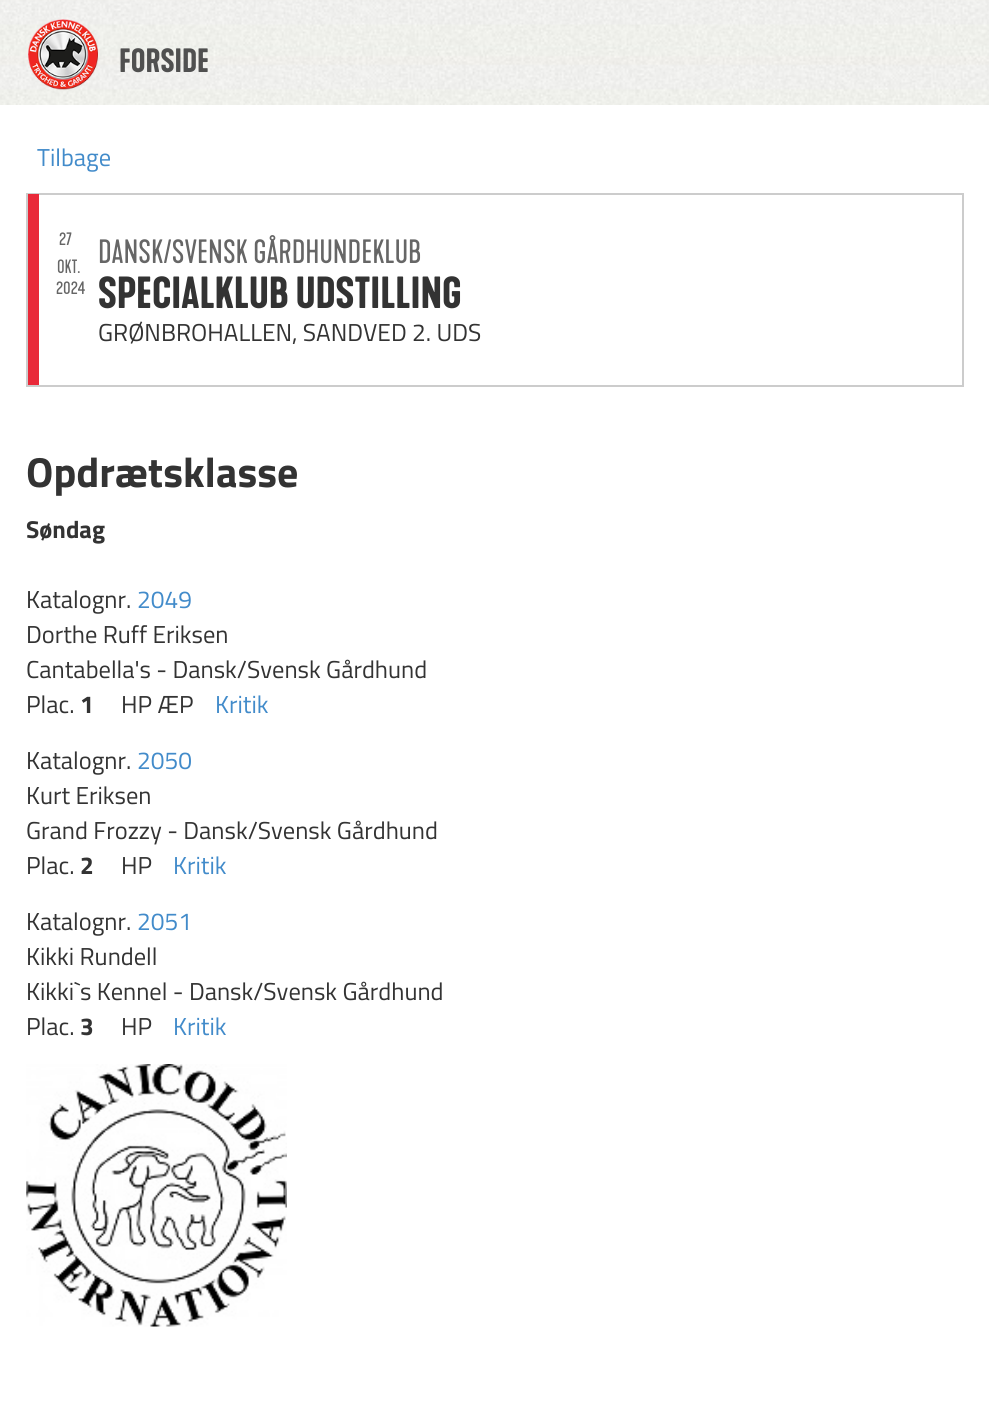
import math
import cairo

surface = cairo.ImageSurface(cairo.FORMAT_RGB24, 989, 1415)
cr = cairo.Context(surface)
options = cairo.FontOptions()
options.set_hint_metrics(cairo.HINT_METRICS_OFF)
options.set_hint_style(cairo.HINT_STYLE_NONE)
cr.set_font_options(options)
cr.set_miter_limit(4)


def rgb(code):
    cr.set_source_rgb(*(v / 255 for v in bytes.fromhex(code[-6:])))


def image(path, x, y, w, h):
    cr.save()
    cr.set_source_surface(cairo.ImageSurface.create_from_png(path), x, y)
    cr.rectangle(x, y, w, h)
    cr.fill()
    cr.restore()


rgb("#ffffff")
cr.paint()
image("img/1.png", 0, 0, 989, 105)
image("img/2.png", 28, 19, 70, 71)
cr.rectangle(27, 194, 936, 192)
rgb("#cccccc")
cr.stroke()
rgb("#e92939")
cr.rectangle(28, 194, 11, 191)
cr.fill()
image("img/3.png", 26, 1064, 261, 263)
cr.select_font_face("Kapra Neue", cairo.FONT_SLANT_NORMAL, cairo.FONT_WEIGHT_BOLD)
cr.set_font_size(31.5)
rgb("#505050")
cr.move_to(119, 72)
cr.show_text("FORSIDE")
cr.select_font_face("Titillium Web")
cr.set_font_size(24.5)
rgb("#428bca")
cr.move_to(37, 166)
cr.show_text("Tilbage")
cr.select_font_face("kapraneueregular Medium")
cr.set_font_size(18)
rgb("#666666")
for x, y, s in [
    (59, 245, "27"),
    (57, 273, "OKT."),
    (56, 294, "2024"),
]:
    cr.move_to(x, y)
    cr.show_text(s)
cr.set_font_size(31.5)
cr.move_to(98, 263)
cr.show_text("DANSK/SVENSK GÅRDHUNDEKLUB")
cr.select_font_face("Kapra Neue", cairo.FONT_SLANT_NORMAL, cairo.FONT_WEIGHT_BOLD)
cr.set_font_size(42)
rgb("#333333")
cr.move_to(98, 308)
cr.show_text("SPECIALKLUB UDSTILLING")
cr.select_font_face("Titillium Web")
cr.set_font_size(24.5)
cr.move_to(98, 341)
cr.show_text("GRØNBROHALLEN, SANDVED 2. UDS")
cr.select_font_face("Titillium Web", cairo.FONT_SLANT_NORMAL, cairo.FONT_WEIGHT_BOLD)
cr.set_font_size(42)
cr.move_to(26, 487)
cr.show_text("Opdrætsklasse")
cr.set_font_size(24.5)
cr.move_to(26, 538)
cr.show_text("Søndag")
cr.select_font_face("Titillium Web")
cr.move_to(26, 608)
cr.show_text("Katalognr.")
rgb("#428bca")
cr.move_to(137, 608)
cr.show_text("2049")
rgb("#333333")
for x, y, s in [
    (26, 643, "Dorthe Ruff Eriksen"),
    (26, 678, "Cantabella's - Dansk/Svensk Gårdhund"),
    (26, 713, "Plac."),
]:
    cr.move_to(x, y)
    cr.show_text(s)
cr.select_font_face("Titillium Web", cairo.FONT_SLANT_NORMAL, cairo.FONT_WEIGHT_BOLD)
cr.move_to(80, 713)
cr.show_text("1")
cr.select_font_face("Titillium Web")
cr.move_to(121, 713)
cr.show_text("HP ÆP")
rgb("#428bca")
cr.move_to(215, 713)
cr.show_text("Kritik")
rgb("#333333")
cr.move_to(26, 769)
cr.show_text("Katalognr.")
rgb("#428bca")
cr.move_to(137, 769)
cr.show_text("2050")
rgb("#333333")
for x, y, s in [
    (26, 804, "Kurt Eriksen"),
    (26, 839, "Grand Frozzy - Dansk/Svensk Gårdhund"),
    (26, 874, "Plac."),
]:
    cr.move_to(x, y)
    cr.show_text(s)
cr.select_font_face("Titillium Web", cairo.FONT_SLANT_NORMAL, cairo.FONT_WEIGHT_BOLD)
cr.move_to(80, 874)
cr.show_text("2")
cr.select_font_face("Titillium Web")
cr.move_to(121, 874)
cr.show_text("HP")
rgb("#428bca")
cr.move_to(173, 874)
cr.show_text("Kritik")
rgb("#333333")
cr.move_to(26, 930)
cr.show_text("Katalognr.")
rgb("#428bca")
cr.move_to(137, 930)
cr.show_text("2051")
rgb("#333333")
for x, y, s in [
    (26, 965, "Kikki Rundell"),
    (26, 1000, "Kikki`s Kennel - Dansk/Svensk Gårdhund"),
    (26, 1035, "Plac."),
]:
    cr.move_to(x, y)
    cr.show_text(s)
cr.select_font_face("Titillium Web", cairo.FONT_SLANT_NORMAL, cairo.FONT_WEIGHT_BOLD)
cr.move_to(80, 1035)
cr.show_text("3")
cr.select_font_face("Titillium Web")
cr.move_to(121, 1035)
cr.show_text("HP")
rgb("#428bca")
cr.move_to(173, 1035)
cr.show_text("Kritik")
surface.write_to_png("page.png")
